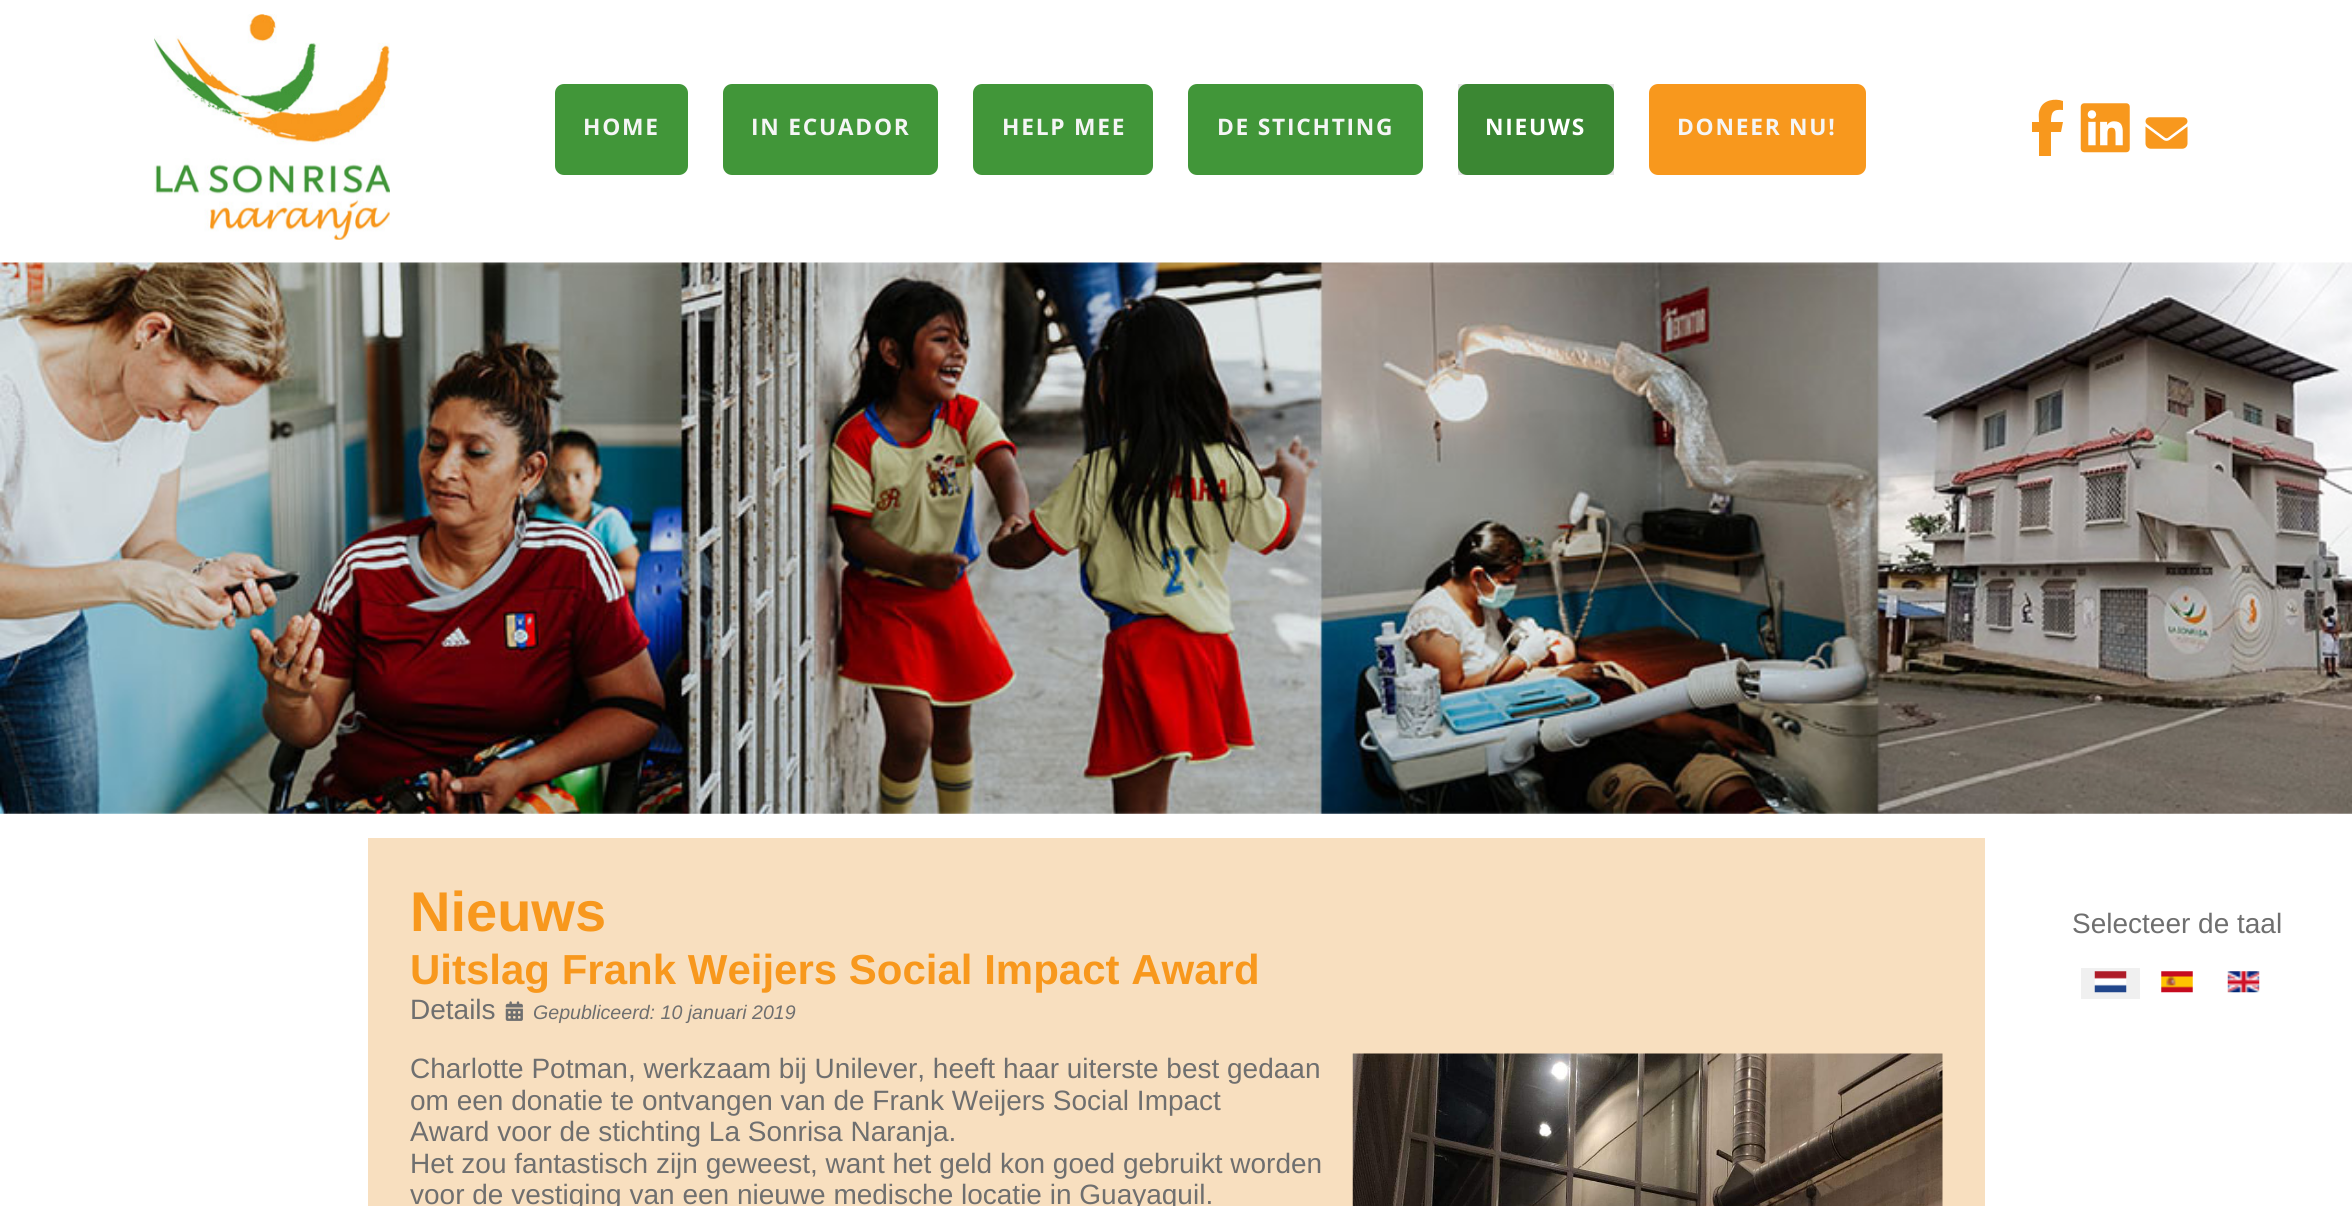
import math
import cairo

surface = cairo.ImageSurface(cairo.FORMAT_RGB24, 2352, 1206)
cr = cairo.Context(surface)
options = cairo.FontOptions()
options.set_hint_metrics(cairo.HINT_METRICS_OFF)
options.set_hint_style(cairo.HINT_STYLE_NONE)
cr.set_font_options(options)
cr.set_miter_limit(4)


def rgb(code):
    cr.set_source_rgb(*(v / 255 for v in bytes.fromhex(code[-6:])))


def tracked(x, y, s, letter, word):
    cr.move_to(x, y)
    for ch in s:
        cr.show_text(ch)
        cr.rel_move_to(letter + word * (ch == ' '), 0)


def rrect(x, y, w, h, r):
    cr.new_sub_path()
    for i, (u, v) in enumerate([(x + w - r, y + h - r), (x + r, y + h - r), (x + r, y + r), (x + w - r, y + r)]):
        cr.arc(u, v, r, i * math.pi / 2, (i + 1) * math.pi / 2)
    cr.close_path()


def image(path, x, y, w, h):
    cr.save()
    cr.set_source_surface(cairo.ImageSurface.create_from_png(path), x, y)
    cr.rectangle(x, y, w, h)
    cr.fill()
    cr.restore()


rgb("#ffffff")
cr.paint()
rgb("#e6e6e6")
cr.rectangle(1458, 84, 156, 91)
cr.fill()
image("img/1.png", 154, 14, 236, 226)
rgb("#419639")
rrect(555, 84, 133, 91, 9)
cr.fill()
rrect(723, 84, 215, 91, 9)
cr.fill()
rrect(973, 84, 180, 91, 9)
cr.fill()
rrect(1188, 84, 235, 91, 9)
cr.fill()
rgb("#3b8733")
rrect(1458, 84, 156, 91, 9)
cr.fill()
rgb("#f8981d")
rrect(1649, 84, 217, 91, 9)
cr.fill()
cr.new_path()
cr.move_to(2039, 132)
cr.line_to(2039, 156)
cr.line_to(2039, 132)
cr.line_to(2039, 156)
cr.line_to(2051, 156)
cr.line_to(2051, 132)
cr.line_to(2061, 132)
cr.line_to(2063, 122)
cr.line_to(2051, 122)
cr.curve_to(2051, 112, 2053, 109, 2063, 110)
cr.line_to(2063, 101)
cr.curve_to(2055, 98, 2043, 100, 2040, 109)
cr.curve_to(2038, 113, 2039, 118, 2039, 122)
cr.line_to(2032, 122)
cr.line_to(2032, 132)
cr.close_path()
cr.fill()
image("img/2.png", 2080, 103, 50, 50)
image("img/3.png", 2145, 117, 43, 32)
image("img/4.png", 0, 262, 2352, 552)
rgb("#f8dfbf")
cr.rectangle(368, 838, 1617, 368)
cr.fill()
image("img/5.png", 505, 1001, 18, 20)
image("img/6.png", 1352, 1053, 591, 153)
rgb("#f0f0f0")
cr.rectangle(2081, 968, 59, 31)
cr.fill()
image("img/7.png", 2094, 971, 33, 22)
image("img/8.png", 2161, 971, 32, 22)
image("img/9.png", 2227, 971, 33, 22)
cr.select_font_face("Open Sans", cairo.FONT_SLANT_NORMAL, cairo.FONT_WEIGHT_BOLD)
cr.set_font_size(22.75)
rgb("#f5f5f5")
for x, y, s in [
    (583, 135, "HOME"),
    (751, 135, "IN ECUADOR"),
    (1002, 135, "HELP MEE"),
    (1217, 135, "DE STICHTING"),
]:
    tracked(x, y, s, 1.75, 0)
rgb("#ffffff")
tracked(1485, 135, "NIEUWS", 1.75, 0)
rgb("#f5f5f5")
tracked(1677, 135, "DONEER NU!", 1.75, 0)
cr.select_font_face("Liberation Sans", cairo.FONT_SLANT_NORMAL, cairo.FONT_WEIGHT_BOLD)
cr.set_font_size(56)
rgb("#f8981d")
cr.move_to(410, 931)
cr.show_text("Nieuws")
cr.set_font_size(42)
cr.move_to(410, 984)
cr.show_text("Uitslag Frank Weijers Social Impact Award")
cr.select_font_face("Liberation Sans")
cr.set_font_size(28)
rgb("#6f6f6f")
cr.move_to(410, 1019)
cr.show_text("Details")
cr.select_font_face("Liberation Sans", cairo.FONT_SLANT_ITALIC)
cr.set_font_size(19.6)
cr.move_to(533, 1019)
cr.show_text("Gepubliceerd: 10 januari 2019")
cr.select_font_face("Liberation Sans")
cr.set_font_size(28)
for x, y, s in [
    (410, 1078, "Charlotte Potman, werkzaam bij Unilever, heeft haar uiterste best gedaan"),
    (410, 1110, "om een donatie te ontvangen van de Frank Weijers Social Impact"),
    (410, 1141, "Award voor de stichting La Sonrisa Naranja."),
    (410, 1173, "Het zou fantastisch zijn geweest, want het geld kon goed gebruikt worden"),
    (410, 1204, "voor de vestiging van een nieuwe medische locatie in Guayaquil."),
    (2072, 933, "Selecteer de taal"),
]:
    cr.move_to(x, y)
    cr.show_text(s)
surface.write_to_png("page.png")
